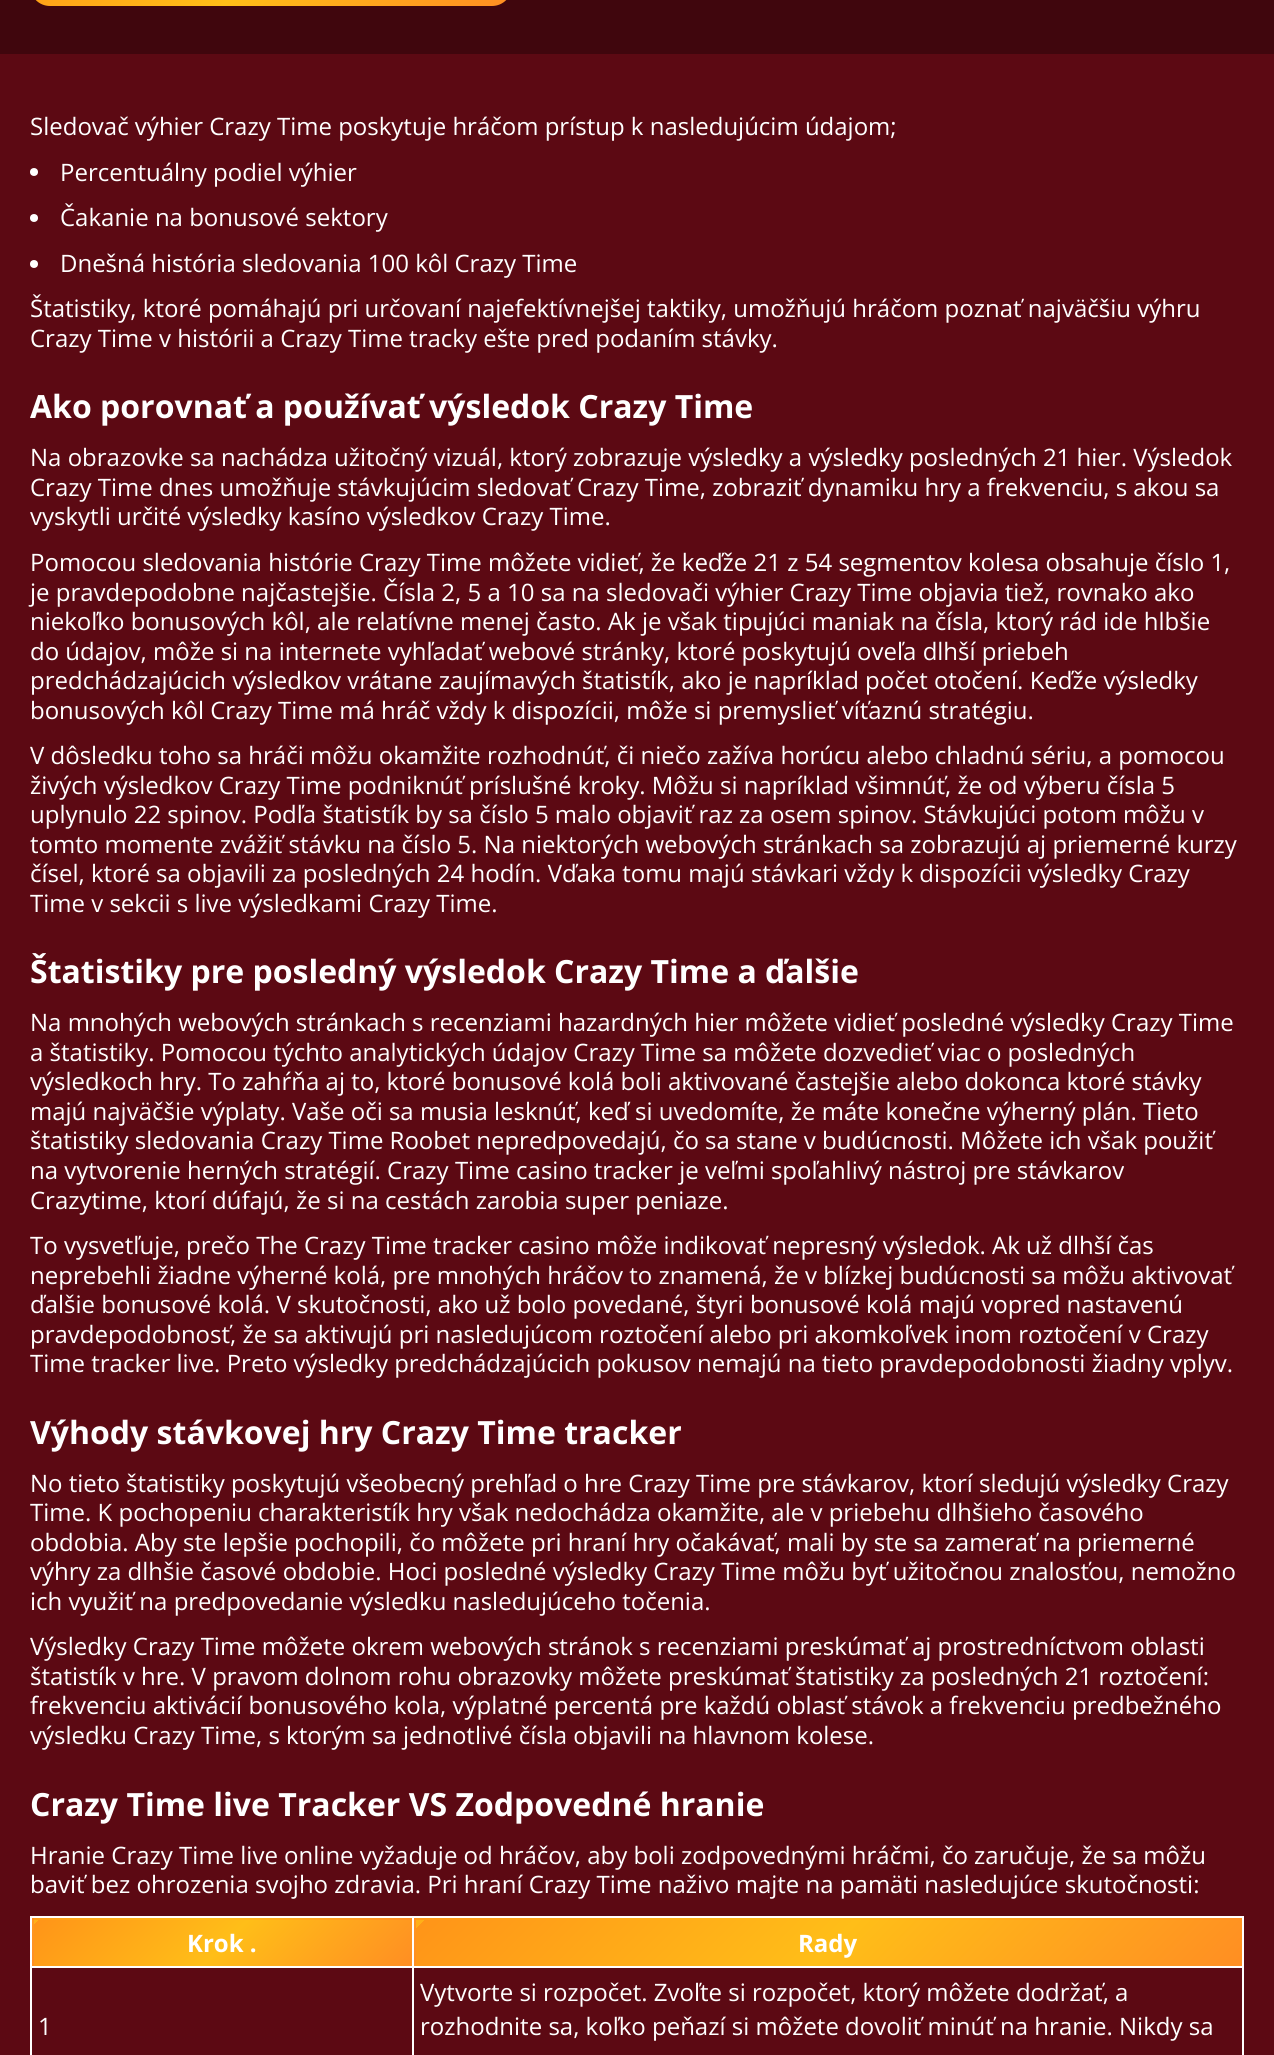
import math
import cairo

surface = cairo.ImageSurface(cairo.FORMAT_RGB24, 1274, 2055)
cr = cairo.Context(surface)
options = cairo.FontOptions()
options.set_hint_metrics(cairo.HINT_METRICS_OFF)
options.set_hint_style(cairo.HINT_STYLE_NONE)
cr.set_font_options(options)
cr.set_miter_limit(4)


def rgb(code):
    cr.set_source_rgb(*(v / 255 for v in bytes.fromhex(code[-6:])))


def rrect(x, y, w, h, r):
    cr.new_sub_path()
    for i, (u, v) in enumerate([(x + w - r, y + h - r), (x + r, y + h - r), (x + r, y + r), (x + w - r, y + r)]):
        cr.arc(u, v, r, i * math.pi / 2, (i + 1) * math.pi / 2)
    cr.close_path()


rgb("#40060d")
cr.paint()
gradient = cairo.LinearGradient(124, -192, 421, 104)
gradient.add_color_stop_rgba(0.01, 1, 0.69, 0.094, 1)
gradient.add_color_stop_rgba(0.01, 1, 0.584, 0.094, 1)
gradient.add_color_stop_rgba(0.5, 1, 0.745, 0.094, 1)
gradient.add_color_stop_rgba(1, 1, 0.553, 0.137, 1)
cr.set_source(gradient)
rrect(30, -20, 482, 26, 20)
cr.fill()
rgb("#5c0913")
cr.rectangle(0, 54, 1274, 2001)
cr.fill()
rgb("#ffffff")
cr.arc(34, 172, 4, 0, 2 * math.pi)
cr.fill()
cr.arc(34, 218, 4, 0, 2 * math.pi)
cr.fill()
cr.arc(34, 264, 4, 0, 2 * math.pi)
cr.fill()
for x, y, w, h, color in [
    (30, 1916, 1214, 2, "#ffffff"),
    (1242, 1916, 2, 139, "#ffffff"),
    (30, 1916, 2, 139, "#ffffff"),
]:
    rgb(color)
    cr.rectangle(x, y, w, h)
    cr.fill()
gradient = cairo.LinearGradient(-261, 1791, -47, 2005)
gradient.add_color_stop_rgba(0.01, 1, 0.69, 0.094, 1)
gradient.add_color_stop_rgba(0.01, 1, 0.584, 0.094, 1)
gradient.add_color_stop_rgba(0.5, 1, 0.745, 0.094, 1)
gradient.add_color_stop_rgba(1, 1, 0.553, 0.137, 1)
cr.set_source(gradient)
cr.rectangle(32, 1918, 2, 2)
cr.fill()
gradient = cairo.LinearGradient(117, 1791, 331, 2005)
gradient.add_color_stop_rgba(0.01, 1, 0.69, 0.094, 1)
gradient.add_color_stop_rgba(0.01, 1, 0.584, 0.094, 1)
gradient.add_color_stop_rgba(0.5, 1, 0.745, 0.094, 1)
gradient.add_color_stop_rgba(1, 1, 0.553, 0.137, 1)
cr.set_source(gradient)
cr.rectangle(34, 1918, 378, 2)
cr.fill()
gradient = cairo.LinearGradient(-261, 1837, -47, 2051)
gradient.add_color_stop_rgba(0.01, 1, 0.69, 0.094, 1)
gradient.add_color_stop_rgba(0.01, 1, 0.584, 0.094, 1)
gradient.add_color_stop_rgba(0.5, 1, 0.745, 0.094, 1)
gradient.add_color_stop_rgba(1, 1, 0.553, 0.137, 1)
cr.set_source(gradient)
cr.rectangle(32, 1920, 2, 46)
cr.fill()
gradient = cairo.LinearGradient(117, 1837, 331, 2051)
gradient.add_color_stop_rgba(0.01, 1, 0.69, 0.094, 1)
gradient.add_color_stop_rgba(0.01, 1, 0.584, 0.094, 1)
gradient.add_color_stop_rgba(0.5, 1, 0.745, 0.094, 1)
gradient.add_color_stop_rgba(1, 1, 0.553, 0.137, 1)
cr.set_source(gradient)
cr.rectangle(34, 1920, 378, 46)
cr.fill()
gradient = cairo.LinearGradient(-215, 1679, 226, 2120)
gradient.add_color_stop_rgba(0.01, 1, 0.69, 0.094, 1)
gradient.add_color_stop_rgba(0.01, 1, 0.584, 0.094, 1)
gradient.add_color_stop_rgba(0.5, 1, 0.745, 0.094, 1)
gradient.add_color_stop_rgba(1, 1, 0.553, 0.137, 1)
cr.set_source(gradient)
cr.rectangle(414, 1918, 2, 2)
cr.fill()
gradient = cairo.LinearGradient(611, 1679, 1052, 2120)
gradient.add_color_stop_rgba(0.01, 1, 0.69, 0.094, 1)
gradient.add_color_stop_rgba(0.01, 1, 0.584, 0.094, 1)
gradient.add_color_stop_rgba(0.5, 1, 0.745, 0.094, 1)
gradient.add_color_stop_rgba(1, 1, 0.553, 0.137, 1)
cr.set_source(gradient)
cr.rectangle(416, 1918, 826, 2)
cr.fill()
gradient = cairo.LinearGradient(-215, 1725, 226, 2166)
gradient.add_color_stop_rgba(0.01, 1, 0.69, 0.094, 1)
gradient.add_color_stop_rgba(0.01, 1, 0.584, 0.094, 1)
gradient.add_color_stop_rgba(0.5, 1, 0.745, 0.094, 1)
gradient.add_color_stop_rgba(1, 1, 0.553, 0.137, 1)
cr.set_source(gradient)
cr.rectangle(414, 1920, 2, 46)
cr.fill()
gradient = cairo.LinearGradient(611, 1725, 1052, 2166)
gradient.add_color_stop_rgba(0.01, 1, 0.69, 0.094, 1)
gradient.add_color_stop_rgba(0.01, 1, 0.584, 0.094, 1)
gradient.add_color_stop_rgba(0.5, 1, 0.745, 0.094, 1)
gradient.add_color_stop_rgba(1, 1, 0.553, 0.137, 1)
cr.set_source(gradient)
cr.rectangle(416, 1920, 826, 46)
cr.fill()
for x, y, w, h, color in [
    (412, 1966, 832, 2, "#ffffff"),
    (412, 1966, 2, 89, "#ffffff"),
    (30, 1966, 384, 2, "#ffffff"),
    (412, 1916, 2, 52, "#ffffff"),
]:
    rgb(color)
    cr.rectangle(x, y, w, h)
    cr.fill()
cr.select_font_face("Open Sans")
cr.set_font_size(24)
for x, y, s in [
    (30, 135, "Sledovač výhier Crazy Time poskytuje hráčom prístup k nasledujúcim údajom;"),
    (60, 181, "Percentuálny podiel výhier"),
    (60, 226, "Čakanie na bonusové sektory"),
    (60, 272, "Dnešná história sledovania 100 kôl Crazy Time"),
    (30, 317, "Štatistiky, ktoré pomáhajú pri určovaní najefektívnejšej taktiky, umožňujú hráčom poznať najväčšiu výhru"),
    (30, 347, "Crazy Time v histórii a Crazy Time tracky ešte pred podaním stávky."),
]:
    cr.move_to(x, y)
    cr.show_text(s)
cr.select_font_face("Open Sans", cairo.FONT_SLANT_NORMAL, cairo.FONT_WEIGHT_BOLD)
cr.set_font_size(32)
cr.move_to(30, 418)
cr.show_text("Ako porovnať a používať výsledok Crazy Time")
cr.select_font_face("Open Sans")
cr.set_font_size(24)
for x, y, s in [
    (30, 466, "Na obrazovke sa nachádza užitočný vizuál, ktorý zobrazuje výsledky a výsledky posledných 21 hier. Výsledok"),
    (30, 496, "Crazy Time dnes umožňuje stávkujúcim sledovať Crazy Time, zobraziť dynamiku hry a frekvenciu, s akou sa"),
    (30, 525, "vyskytli určité výsledky kasíno výsledkov Crazy Time."),
    (30, 571, "Pomocou sledovania histórie Crazy Time môžete vidieť, že keďže 21 z 54 segmentov kolesa obsahuje číslo 1,"),
    (30, 601, "je pravdepodobne najčastejšie. Čísla 2, 5 a 10 sa na sledovači výhier Crazy Time objavia tiež, rovnako ako"),
    (30, 630, "niekoľko bonusových kôl, ale relatívne menej často. Ak je však tipujúci maniak na čísla, ktorý rád ide hlbšie"),
    (30, 660, "do údajov, môže si na internete vyhľadať webové stránky, ktoré poskytujú oveľa dlhší priebeh"),
    (30, 689, "predchádzajúcich výsledkov vrátane zaujímavých štatistík, ako je napríklad počet otočení. Keďže výsledky"),
    (30, 719, "bonusových kôl Crazy Time má hráč vždy k dispozícii, môže si premyslieť víťaznú stratégiu."),
    (30, 764, "V dôsledku toho sa hráči môžu okamžite rozhodnúť, či niečo zažíva horúcu alebo chladnú sériu, a pomocou"),
    (30, 794, "živých výsledkov Crazy Time podniknúť príslušné kroky. Môžu si napríklad všimnúť, že od výberu čísla 5"),
    (30, 823, "uplynulo 22 spinov. Podľa štatistík by sa číslo 5 malo objaviť raz za osem spinov. Stávkujúci potom môžu v"),
    (30, 853, "tomto momente zvážiť stávku na číslo 5. Na niektorých webových stránkach sa zobrazujú aj priemerné kurzy"),
    (30, 882, "čísel, ktoré sa objavili za posledných 24 hodín. Vďaka tomu majú stávkari vždy k dispozícii výsledky Crazy"),
    (30, 912, "Time v sekcii s live výsledkami Crazy Time."),
]:
    cr.move_to(x, y)
    cr.show_text(s)
cr.select_font_face("Open Sans", cairo.FONT_SLANT_NORMAL, cairo.FONT_WEIGHT_BOLD)
cr.set_font_size(32)
cr.move_to(30, 983)
cr.show_text("Štatistiky pre posledný výsledok Crazy Time a ďalšie")
cr.select_font_face("Open Sans")
cr.set_font_size(24)
for x, y, s in [
    (30, 1031, "Na mnohých webových stránkach s recenziami hazardných hier môžete vidieť posledné výsledky Crazy Time"),
    (30, 1061, "a štatistiky. Pomocou týchto analytických údajov Crazy Time sa môžete dozvedieť viac o posledných"),
    (30, 1090, "výsledkoch hry. To zahŕňa aj to, ktoré bonusové kolá boli aktivované častejšie alebo dokonca ktoré stávky"),
    (30, 1120, "majú najväčšie výplaty. Vaše oči sa musia lesknúť, keď si uvedomíte, že máte konečne výherný plán. Tieto"),
    (30, 1149, "štatistiky sledovania Crazy Time Roobet nepredpovedajú, čo sa stane v budúcnosti. Môžete ich však použiť"),
    (30, 1179, "na vytvorenie herných stratégií. Crazy Time casino tracker je veľmi spoľahlivý nástroj pre stávkarov"),
    (30, 1209, "Crazytime, ktorí dúfajú, že si na cestách zarobia super peniaze."),
    (30, 1254, "To vysvetľuje, prečo The Crazy Time tracker casino môže indikovať nepresný výsledok. Ak už dlhší čas"),
    (30, 1284, "neprebehli žiadne výherné kolá, pre mnohých hráčov to znamená, že v blízkej budúcnosti sa môžu aktivovať"),
    (30, 1313, "ďalšie bonusové kolá. V skutočnosti, ako už bolo povedané, štyri bonusové kolá majú vopred nastavenú"),
    (30, 1343, "pravdepodobnosť, že sa aktivujú pri nasledujúcom roztočení alebo pri akomkoľvek inom roztočení v Crazy"),
    (30, 1372, "Time tracker live. Preto výsledky predchádzajúcich pokusov nemajú na tieto pravdepodobnosti žiadny vplyv."),
]:
    cr.move_to(x, y)
    cr.show_text(s)
cr.select_font_face("Open Sans", cairo.FONT_SLANT_NORMAL, cairo.FONT_WEIGHT_BOLD)
cr.set_font_size(32)
cr.move_to(30, 1444)
cr.show_text("Výhody stávkovej hry Crazy Time tracker")
cr.select_font_face("Open Sans")
cr.set_font_size(24)
for x, y, s in [
    (30, 1492, "No tieto štatistiky poskytujú všeobecný prehľad o hre Crazy Time pre stávkarov, ktorí sledujú výsledky Crazy"),
    (30, 1521, "Time. K pochopeniu charakteristík hry však nedochádza okamžite, ale v priebehu dlhšieho časového"),
    (30, 1551, "obdobia. Aby ste lepšie pochopili, čo môžete pri hraní hry očakávať, mali by ste sa zamerať na priemerné"),
    (30, 1580, "výhry za dlhšie časové obdobie. Hoci posledné výsledky Crazy Time môžu byť užitočnou znalosťou, nemožno"),
    (30, 1610, "ich využiť na predpovedanie výsledku nasledujúceho točenia."),
    (30, 1655, "Výsledky Crazy Time môžete okrem webových stránok s recenziami preskúmať aj prostredníctvom oblasti"),
    (30, 1685, "štatistík v hre. V pravom dolnom rohu obrazovky môžete preskúmať štatistiky za posledných 21 roztočení:"),
    (30, 1714, "frekvenciu aktivácií bonusového kola, výplatné percentá pre každú oblasť stávok a frekvenciu predbežného"),
    (30, 1744, "výsledku Crazy Time, s ktorým sa jednotlivé čísla objavili na hlavnom kolese."),
]:
    cr.move_to(x, y)
    cr.show_text(s)
cr.select_font_face("Open Sans", cairo.FONT_SLANT_NORMAL, cairo.FONT_WEIGHT_BOLD)
cr.set_font_size(32)
cr.move_to(30, 1816)
cr.show_text("Crazy Time live Tracker VS Zodpovedné hranie")
cr.select_font_face("Open Sans")
cr.set_font_size(24)
cr.move_to(30, 1864)
cr.show_text("Hranie Crazy Time live online vyžaduje od hráčov, aby boli zodpovednými hráčmi, čo zaručuje, že sa môžu")
cr.move_to(30, 1893)
cr.show_text("baviť bez ohrozenia svojho zdravia. Pri hraní Crazy Time naživo majte na pamäti nasledujúce skutočnosti:")
cr.select_font_face("Open Sans", cairo.FONT_SLANT_NORMAL, cairo.FONT_WEIGHT_BOLD)
cr.move_to(187, 1952)
cr.show_text("Krok .")
cr.move_to(798, 1952)
cr.show_text("Rady")
cr.select_font_face("Open Sans")
for x, y, s in [
    (38, 2035, "1"),
    (420, 2001, "Vytvorte si rozpočet. Zvoľte si rozpočet, ktorý môžete dodržať, a"),
    (420, 2035, "rozhodnite sa, koľko peňazí si môžete dovoliť minúť na hranie. Nikdy sa"),
]:
    cr.move_to(x, y)
    cr.show_text(s)
surface.write_to_png("page.png")
